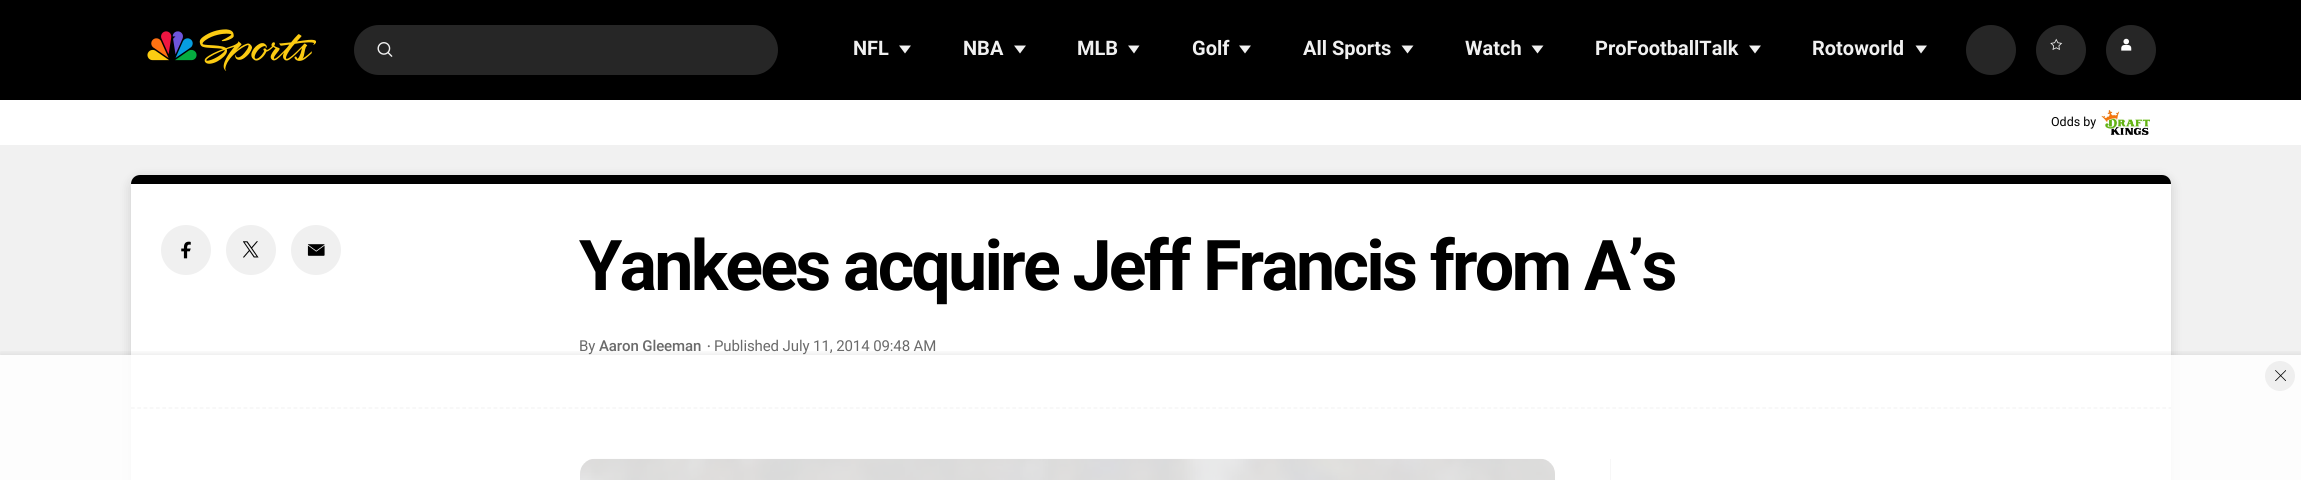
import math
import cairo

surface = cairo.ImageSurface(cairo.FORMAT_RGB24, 2301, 480)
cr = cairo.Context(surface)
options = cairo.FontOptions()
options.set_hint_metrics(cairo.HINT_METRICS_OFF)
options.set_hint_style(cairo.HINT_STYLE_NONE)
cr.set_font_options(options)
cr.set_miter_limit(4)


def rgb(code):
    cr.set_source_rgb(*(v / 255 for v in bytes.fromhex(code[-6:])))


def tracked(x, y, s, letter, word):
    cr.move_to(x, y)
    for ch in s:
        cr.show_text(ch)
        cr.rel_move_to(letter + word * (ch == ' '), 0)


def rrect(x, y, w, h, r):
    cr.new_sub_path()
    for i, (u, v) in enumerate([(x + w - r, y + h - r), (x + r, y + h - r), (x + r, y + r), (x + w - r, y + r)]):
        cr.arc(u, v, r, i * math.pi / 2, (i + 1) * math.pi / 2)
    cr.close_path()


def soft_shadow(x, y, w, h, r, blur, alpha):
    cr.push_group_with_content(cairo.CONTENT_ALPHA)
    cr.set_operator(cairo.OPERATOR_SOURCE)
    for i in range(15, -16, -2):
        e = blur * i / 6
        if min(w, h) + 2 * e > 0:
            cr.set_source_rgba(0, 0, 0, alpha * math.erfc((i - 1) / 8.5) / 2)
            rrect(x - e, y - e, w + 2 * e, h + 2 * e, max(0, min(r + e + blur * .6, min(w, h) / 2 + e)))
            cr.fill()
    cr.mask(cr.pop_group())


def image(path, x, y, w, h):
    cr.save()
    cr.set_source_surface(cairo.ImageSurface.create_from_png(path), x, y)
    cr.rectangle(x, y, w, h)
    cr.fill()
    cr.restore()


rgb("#f1f1f1")
cr.paint()
rgb("#000000")
cr.rectangle(0, 0, 2301, 100)
cr.fill()
image("img/1.png", 147, 29, 169, 42)
rgb("#262626")
rrect(354, 25, 424, 50, 25)
cr.fill()
image("img/2.png", 377, 42, 16, 15)
rgb("#f0f0f0")
cr.new_path()
cr.move_to(905, 53.5)
cr.line_to(899, 45.5)
cr.line_to(911, 45.5)
cr.close_path()
cr.fill()
cr.new_path()
cr.move_to(1020, 53.5)
cr.line_to(1014, 45.5)
cr.line_to(1026, 45.5)
cr.close_path()
cr.fill()
cr.new_path()
cr.move_to(1134, 53.5)
cr.line_to(1128, 45.5)
cr.line_to(1139.5, 45.5)
cr.close_path()
cr.fill()
cr.new_path()
cr.move_to(1245, 53.5)
cr.line_to(1239, 45.5)
cr.line_to(1251, 45.5)
cr.close_path()
cr.fill()
cr.new_path()
cr.move_to(1407.5, 53.5)
cr.line_to(1401.5, 45.5)
cr.line_to(1413.5, 45.5)
cr.close_path()
cr.fill()
cr.new_path()
cr.move_to(1537.5, 53.5)
cr.line_to(1531.5, 45.5)
cr.line_to(1543.5, 45.5)
cr.close_path()
cr.fill()
cr.new_path()
cr.move_to(1755, 53.5)
cr.line_to(1749, 45.5)
cr.line_to(1761, 45.5)
cr.close_path()
cr.fill()
cr.new_path()
cr.move_to(1921, 53.5)
cr.line_to(1915.5, 45.5)
cr.line_to(1927, 45.5)
cr.close_path()
cr.fill()
rgb("#262626")
cr.arc(1991, 50, 25, 0, 2 * math.pi)
cr.fill()
cr.arc(2061, 50, 25, 0, 2 * math.pi)
cr.fill()
image("img/3.png", 2050, 38, 13, 12)
cr.arc(2131, 50, 25, 0, 2 * math.pi)
cr.fill()
image("img/4.png", 2121, 38, 11, 13)
rgb("#ffffff")
cr.rectangle(0, 100, 2301, 45)
cr.fill()
image("img/5.png", 2101, 110, 49, 25)
rgb("#000000")
soft_shadow(131, 178, 2040, 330, 10, 6, 0.15)
rgb("#ffffff")
rrect(131, 175, 2040, 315, 10)
cr.fill()
rgb("#000000")
cr.new_path()
cr.move_to(140, 175)
cr.line_to(2162, 175)
cr.curve_to(2167, 175, 2171, 179, 2171, 184)
cr.line_to(131, 184)
cr.curve_to(131, 179, 135, 175, 140, 175)
cr.close_path()
cr.fill()
cr.new_path()
cr.move_to(131, 408)
cr.line_to(2171, 408)
rgb("#b3b3b3")
cr.set_line_width(1.2)
cr.set_dash([3.75, 2.5])
cr.stroke()
rgb("#f0f0f0")
cr.arc(186, 250, 25, 0, 2 * math.pi)
cr.fill()
image("img/6.png", 181, 241, 10, 18)
cr.arc(251, 250, 25, 0, 2 * math.pi)
cr.fill()
image("img/7.png", 243, 241, 16, 17)
cr.arc(316, 250, 25, 0, 2 * math.pi)
cr.fill()
image("img/8.png", 307, 244, 18, 12)
rgb("#6a6a6a")
cr.arc(708.8, 346.2, 1, 0, 2 * math.pi)
cr.fill()
image("img/9.png", 580, 458, 975, 22)
rgb("#cccccc")
cr.rectangle(1610, 459, 1, 21)
cr.fill()
cr.save()
cr.rectangle(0, 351, 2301, 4)
cr.clip()
rgb("#000000")
soft_shadow(0, 353, 2301, 125, 0, 2.5, 0.08)
cr.restore()
cr.set_source_rgba(1, 1, 1, 0.85)
cr.rectangle(0, 355, 2301, 125)
cr.fill()
rgb("#efefef")
cr.arc(2280, 376, 15, 0, 2 * math.pi)
cr.fill()
image("img/10.png", 2275, 370, 11, 11)
cr.select_font_face("Roboto", cairo.FONT_SLANT_NORMAL, cairo.FONT_WEIGHT_BOLD)
cr.set_font_size(20)
rgb("#f0f0f0")
for x, y, s in [
    (853, 55, "NFL"),
    (963, 55, "NBA"),
    (1077, 55, "MLB"),
    (1192, 55, "Golf"),
    (1303, 55, "All Sports"),
    (1465, 55, "Watch"),
    (1595, 55, "ProFootballTalk"),
    (1812, 55, "Rotoworld"),
]:
    cr.move_to(x, y)
    cr.show_text(s)
cr.select_font_face("Roboto")
cr.set_font_size(12.5)
rgb("#000000")
cr.move_to(2051, 126)
cr.show_text("Odds by")
cr.select_font_face("Roboto", cairo.FONT_SLANT_NORMAL, cairo.FONT_WEIGHT_BOLD)
cr.set_font_size(70)
tracked(579, 290, "Yankees acquire Jeff Francis from A’s", -2.8, 0)
cr.select_font_face("Roboto")
cr.set_font_size(15)
rgb("#6a6a6a")
tracked(579, 351, "By", -0.1, 0)
cr.select_font_face("Roboto Medium")
tracked(599, 351, "Aaron Gleeman", -0.1, 0)
cr.select_font_face("Roboto")
tracked(714, 351, "Published July 11, 2014 09:48 AM", -0.1, 0)
surface.write_to_png("page.png")
